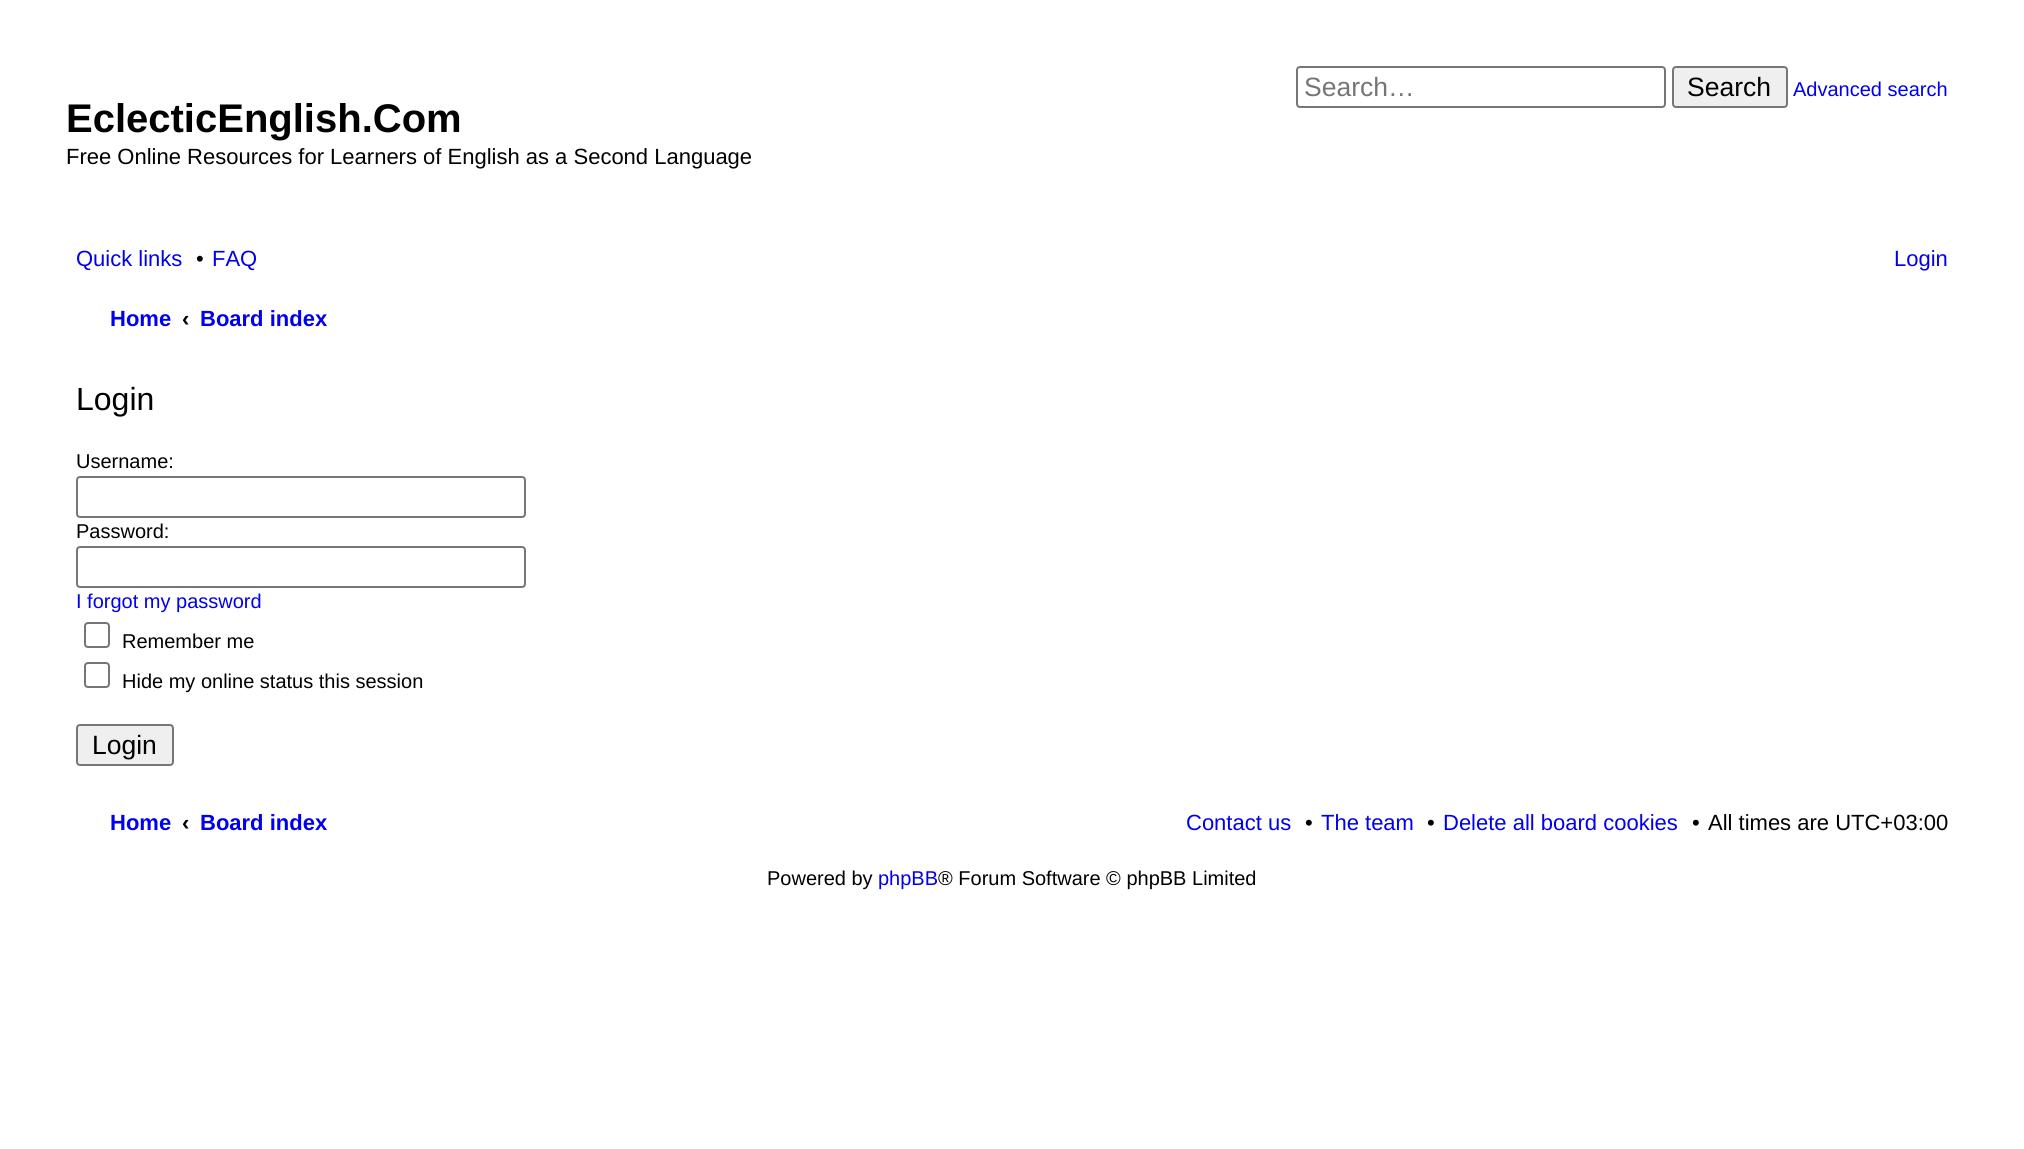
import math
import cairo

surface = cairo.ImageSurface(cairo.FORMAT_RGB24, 2024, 1149)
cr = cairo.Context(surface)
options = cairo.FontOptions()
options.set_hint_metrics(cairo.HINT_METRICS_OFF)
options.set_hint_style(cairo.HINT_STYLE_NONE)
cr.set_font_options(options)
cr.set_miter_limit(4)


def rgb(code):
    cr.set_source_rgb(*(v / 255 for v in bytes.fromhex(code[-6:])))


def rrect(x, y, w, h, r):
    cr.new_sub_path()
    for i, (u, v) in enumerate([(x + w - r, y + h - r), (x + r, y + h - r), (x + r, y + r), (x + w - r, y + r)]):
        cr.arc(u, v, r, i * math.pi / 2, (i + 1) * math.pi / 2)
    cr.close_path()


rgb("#ffffff")
cr.paint()
rrect(1297, 67, 368, 40, 3)
rgb("#767676")
cr.stroke()
rgb("#efefef")
rrect(1673, 67, 114, 40, 3)
cr.fill_preserve()
rgb("#767676")
cr.stroke()
rrect(77, 477, 448, 40, 3)
cr.stroke()
rrect(77, 547, 448, 40, 3)
cr.stroke()
rrect(85, 623, 24, 24, 3)
cr.stroke()
rrect(85, 663, 24, 24, 3)
cr.stroke()
rgb("#efefef")
rrect(77, 725, 96, 40, 3)
cr.fill_preserve()
rgb("#767676")
cr.stroke()
cr.select_font_face("Liberation Sans")
cr.set_font_size(26.5)
rgb("#757575")
cr.move_to(1304, 96)
cr.show_text("Search…")
rgb("#000000")
cr.move_to(1687, 96)
cr.show_text("Search")
cr.set_font_size(20)
rgb("#0000ee")
cr.move_to(1793, 96)
cr.show_text("Advanced search")
cr.select_font_face("Liberation Sans", cairo.FONT_SLANT_NORMAL, cairo.FONT_WEIGHT_BOLD)
cr.set_font_size(40)
rgb("#000000")
cr.move_to(66, 132)
cr.show_text("EclecticEnglish.Com")
cr.select_font_face("Liberation Sans")
cr.set_font_size(22)
cr.move_to(66, 164)
cr.show_text("Free Online Resources for Learners of English as a Second Language")
rgb("#0000ee")
cr.move_to(76, 266)
cr.show_text("Quick links")
rgb("#000000")
cr.move_to(196, 266)
cr.show_text("•")
rgb("#0000ee")
cr.move_to(212, 266)
cr.show_text("FAQ")
cr.move_to(1894, 266)
cr.show_text("Login")
cr.select_font_face("Liberation Sans", cairo.FONT_SLANT_NORMAL, cairo.FONT_WEIGHT_BOLD)
cr.move_to(110, 326)
cr.show_text("Home")
rgb("#000000")
cr.move_to(182, 326)
cr.show_text("‹")
rgb("#0000ee")
cr.move_to(200, 326)
cr.show_text("Board index")
cr.select_font_face("Liberation Sans")
cr.set_font_size(32)
rgb("#000000")
cr.move_to(76, 410)
cr.show_text("Login")
cr.set_font_size(20)
cr.move_to(76, 468)
cr.show_text("Username:")
cr.move_to(76, 538)
cr.show_text("Password:")
rgb("#0000ee")
cr.move_to(76, 608)
cr.show_text("I forgot my password")
rgb("#000000")
cr.move_to(122, 648)
cr.show_text("Remember me")
cr.move_to(122, 688)
cr.show_text("Hide my online status this session")
cr.set_font_size(26.5)
cr.move_to(92, 754)
cr.show_text("Login")
cr.select_font_face("Liberation Sans", cairo.FONT_SLANT_NORMAL, cairo.FONT_WEIGHT_BOLD)
cr.set_font_size(22)
rgb("#0000ee")
cr.move_to(110, 830)
cr.show_text("Home")
rgb("#000000")
cr.move_to(182, 830)
cr.show_text("‹")
rgb("#0000ee")
cr.move_to(200, 830)
cr.show_text("Board index")
cr.select_font_face("Liberation Sans")
cr.move_to(1186, 830)
cr.show_text("Contact us")
rgb("#000000")
cr.move_to(1305, 830)
cr.show_text("•")
rgb("#0000ee")
cr.move_to(1321, 830)
cr.show_text("The team")
rgb("#000000")
cr.move_to(1427, 830)
cr.show_text("•")
rgb("#0000ee")
cr.move_to(1443, 830)
cr.show_text("Delete all board cookies")
rgb("#000000")
cr.move_to(1692, 830)
cr.show_text("•")
cr.move_to(1708, 830)
cr.show_text("All times are UTC+03:00")
cr.set_font_size(20)
cr.move_to(767, 885)
cr.show_text("Powered by")
rgb("#0000ee")
cr.move_to(878, 885)
cr.show_text("phpBB")
rgb("#000000")
cr.move_to(938, 885)
cr.show_text("® Forum Software © phpBB Limited")
surface.write_to_png("page.png")
